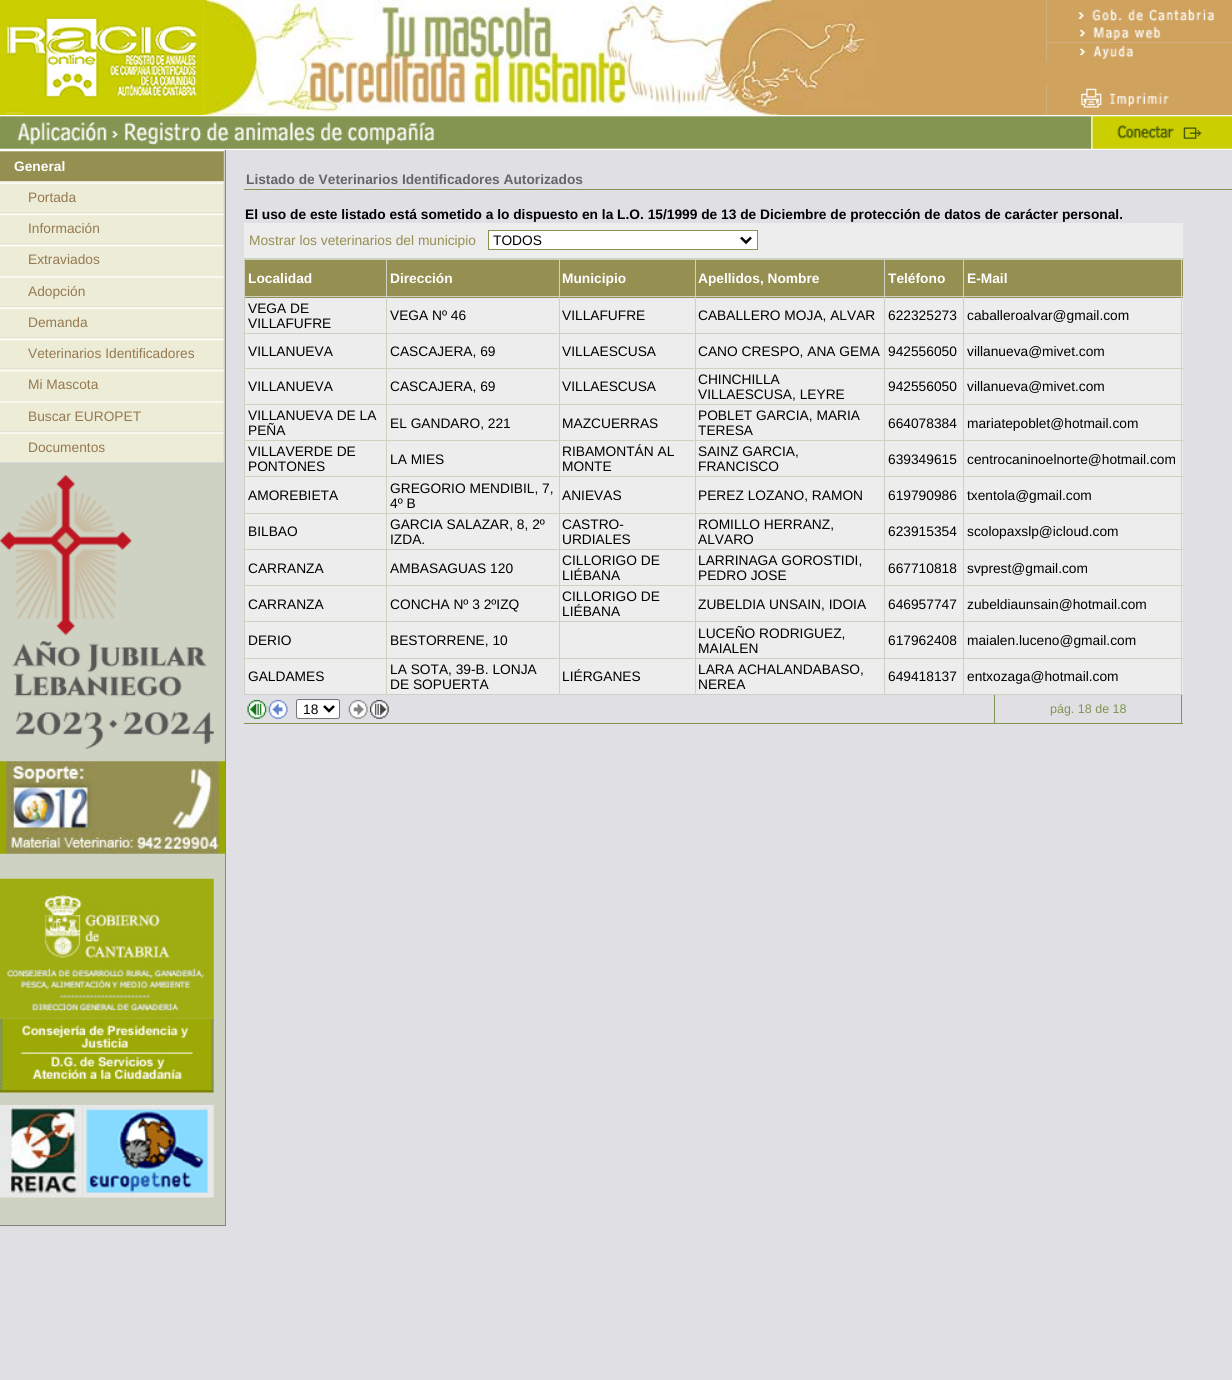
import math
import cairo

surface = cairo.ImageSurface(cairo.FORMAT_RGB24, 1232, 1380)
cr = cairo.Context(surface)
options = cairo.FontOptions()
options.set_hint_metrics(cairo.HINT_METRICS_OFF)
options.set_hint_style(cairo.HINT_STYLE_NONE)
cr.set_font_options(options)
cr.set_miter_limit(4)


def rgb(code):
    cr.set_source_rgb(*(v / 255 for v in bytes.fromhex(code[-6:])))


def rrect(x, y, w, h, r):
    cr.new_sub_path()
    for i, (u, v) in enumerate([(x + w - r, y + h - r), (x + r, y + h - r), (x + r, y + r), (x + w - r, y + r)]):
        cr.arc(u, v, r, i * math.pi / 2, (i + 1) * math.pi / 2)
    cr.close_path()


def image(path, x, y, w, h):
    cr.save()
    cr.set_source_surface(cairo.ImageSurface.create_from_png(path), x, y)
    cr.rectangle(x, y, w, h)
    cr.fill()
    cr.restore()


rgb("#e0dfe3")
cr.paint()
image("img/2.png", 203, 0, 843, 115)
image("img/1.png", 0, 0, 204, 115)
rgb("#d7d6e8")
cr.rectangle(1046, 0, 186, 115)
cr.fill()
image("img/3.png", 1046, 0, 186, 25)
image("img/4.png", 1046, 25, 186, 18)
image("img/5.png", 1046, 42, 186, 20)
rgb("#cfa25e")
cr.rectangle(1046, 62, 186, 23)
cr.fill()
image("img/6.png", 1046, 85, 186, 30)
image("img/7.png", 0, 115, 1232, 35)
image("img/8.png", 0, 122, 563, 27)
image("img/9.png", 1091, 116, 141, 33)
rgb("#ced2c3")
cr.rectangle(0, 150, 225, 1075)
cr.fill()
rgb("#849551")
cr.rectangle(225, 150, 1, 1076)
cr.fill()
image("img/10.png", 0, 150, 224, 31)
rgb("#bdc7d7")
cr.rectangle(0, 181, 224, 63)
cr.fill()
image("img/11.png", 0, 181, 224, 32)
image("img/12.png", 0, 212, 224, 32)
image("img/13.png", 0, 243, 224, 32)
image("img/14.png", 0, 275, 224, 31)
cr.rectangle(0, 306, 224, 63)
cr.fill()
image("img/11.png", 0, 306, 224, 32)
image("img/12.png", 0, 337, 224, 32)
image("img/13.png", 0, 368, 224, 32)
image("img/14.png", 0, 400, 224, 31)
cr.rectangle(0, 431, 224, 32)
cr.fill()
image("img/15.png", 0, 431, 224, 32)
image("img/16.png", 0, 475, 214, 274)
image("img/17.png", 0, 761, 225, 93)
image("img/18.png", 0, 878, 214, 141)
image("img/19.png", 0, 1018, 214, 75)
image("img/20.png", 0, 1105, 83, 93)
image("img/21.png", 82, 1105, 132, 93)
for x, y, w, h, color in [
    (0, 1225, 226, 1, "#808080"),
    (244, 189, 988, 1, "#809550"),
    (244, 223, 939, 35, "#ededed"),
    (244, 258, 940, 1, "#ccd3c3"),
]:
    rgb(color)
    cr.rectangle(x, y, w, h)
    cr.fill()
rgb("#ffffff")
cr.rectangle(488.5, 230.5, 269, 19)
cr.fill_preserve()
rgb("#839551")
cr.set_line_width(1)
cr.stroke()
cr.new_path()
cr.move_to(741, 237.5)
cr.line_to(746, 242.5)
cr.line_to(751, 237.5)
rgb("#000000")
cr.set_line_width(2.5)
cr.stroke()
for x, y, w, h, color in [
    (245, 260, 314, 38, "#958f51"),
    (963, 259, 220, 1, "#ced2c3"),
    (964, 260, 219, 38, "#958f51"),
    (964, 298, 219, 35, "#ededed"),
    (964, 334, 219, 34, "#ededed"),
    (963, 333, 220, 1, "#ccd3c3"),
    (963, 368, 220, 1, "#ccd3c3"),
    (964, 369, 219, 35, "#ededed"),
    (963, 404, 220, 1, "#ccd3c3"),
    (964, 405, 219, 35, "#ededed"),
    (963, 440, 220, 1, "#ccd3c3"),
    (964, 441, 219, 72, "#ededed"),
    (963, 476, 220, 1, "#ccd3c3"),
    (963, 513, 220, 1, "#ccd3c3"),
    (964, 514, 219, 35, "#ededed"),
    (963, 549, 220, 1, "#ccd3c3"),
    (964, 550, 219, 35, "#ededed"),
    (963, 585, 220, 1, "#ccd3c3"),
    (964, 586, 219, 72, "#ededed"),
    (963, 621, 220, 1, "#ccd3c3"),
    (963, 658, 220, 1, "#ccd3c3"),
    (964, 659, 219, 35, "#ededed"),
    (1181, 658, 1, 37, "#ccd3c3"),
    (1181, 621, 1, 38, "#ccd3c3"),
    (1181, 585, 1, 38, "#ccd3c3"),
    (1181, 549, 1, 37, "#ccd3c3"),
    (1181, 513, 1, 37, "#ccd3c3"),
    (1181, 476, 1, 38, "#ccd3c3"),
    (1181, 440, 1, 38, "#ccd3c3"),
    (1181, 404, 1, 37, "#ccd3c3"),
    (1181, 368, 1, 37, "#ccd3c3"),
    (1181, 296, 1, 73, "#ccd3c3"),
    (1181, 259, 1, 39, "#ced2c3"),
    (885, 441, 78, 72, "#ededed"),
    (885, 586, 78, 72, "#ededed"),
    (963, 694, 220, 1, "#ccd3c3"),
    (963, 658, 1, 37, "#ccd3c3"),
    (884, 658, 80, 1, "#ccd3c3"),
    (963, 621, 1, 38, "#ccd3c3"),
    (884, 621, 80, 1, "#ccd3c3"),
    (963, 585, 1, 38, "#ccd3c3"),
    (884, 585, 80, 1, "#ccd3c3"),
    (963, 549, 1, 37, "#ccd3c3"),
    (884, 549, 80, 1, "#ccd3c3"),
    (963, 513, 1, 37, "#ccd3c3"),
    (884, 513, 80, 1, "#ccd3c3"),
    (963, 476, 1, 38, "#ccd3c3"),
    (884, 476, 80, 1, "#ccd3c3"),
    (963, 440, 1, 38, "#ccd3c3"),
    (884, 440, 80, 1, "#ccd3c3"),
    (963, 404, 1, 37, "#ccd3c3"),
    (884, 404, 80, 1, "#ccd3c3"),
    (963, 368, 1, 37, "#ccd3c3"),
    (884, 368, 80, 1, "#ccd3c3"),
    (963, 333, 1, 36, "#ccd3c3"),
    (884, 333, 80, 1, "#ccd3c3"),
    (963, 296, 1, 38, "#ccd3c3"),
    (963, 296, 220, 1, "#ced2c3"),
    (963, 259, 1, 39, "#ced2c3"),
    (884, 259, 80, 1, "#ced2c3"),
    (885, 260, 78, 38, "#958f51"),
    (696, 441, 188, 72, "#ededed"),
    (696, 586, 188, 72, "#ededed"),
    (884, 694, 80, 1, "#ccd3c3"),
    (884, 658, 1, 37, "#ccd3c3"),
    (695, 658, 190, 1, "#ccd3c3"),
    (884, 621, 1, 38, "#ccd3c3"),
    (695, 621, 190, 1, "#ccd3c3"),
    (884, 585, 1, 38, "#ccd3c3"),
    (695, 585, 190, 1, "#ccd3c3"),
    (884, 549, 1, 37, "#ccd3c3"),
    (695, 549, 190, 1, "#ccd3c3"),
    (884, 513, 1, 37, "#ccd3c3"),
    (695, 513, 190, 1, "#ccd3c3"),
    (884, 476, 1, 38, "#ccd3c3"),
    (695, 476, 190, 1, "#ccd3c3"),
    (884, 440, 1, 38, "#ccd3c3"),
    (695, 440, 190, 1, "#ccd3c3"),
    (884, 404, 1, 37, "#ccd3c3"),
    (695, 404, 190, 1, "#ccd3c3"),
    (884, 368, 1, 37, "#ccd3c3"),
    (695, 368, 190, 1, "#ccd3c3"),
    (884, 333, 1, 36, "#ccd3c3"),
    (695, 333, 190, 1, "#ccd3c3"),
    (884, 296, 1, 38, "#ccd3c3"),
    (884, 296, 80, 1, "#ced2c3"),
    (884, 259, 1, 39, "#ced2c3"),
    (695, 259, 190, 1, "#ced2c3"),
    (696, 260, 188, 38, "#958f51"),
    (560, 441, 135, 72, "#ededed"),
    (560, 586, 135, 72, "#ededed"),
    (695, 694, 190, 1, "#ccd3c3"),
    (695, 658, 1, 37, "#ccd3c3"),
    (559, 658, 137, 1, "#ccd3c3"),
    (695, 621, 1, 38, "#ccd3c3"),
    (559, 621, 137, 1, "#ccd3c3"),
    (695, 585, 1, 38, "#ccd3c3"),
    (559, 585, 137, 1, "#ccd3c3"),
    (695, 549, 1, 37, "#ccd3c3"),
    (559, 549, 137, 1, "#ccd3c3"),
    (695, 513, 1, 37, "#ccd3c3"),
    (559, 513, 137, 1, "#ccd3c3"),
    (695, 476, 1, 38, "#ccd3c3"),
    (559, 476, 137, 1, "#ccd3c3"),
    (695, 440, 1, 38, "#ccd3c3"),
    (559, 440, 137, 1, "#ccd3c3"),
    (695, 404, 1, 37, "#ccd3c3"),
    (559, 404, 137, 1, "#ccd3c3"),
    (695, 368, 1, 37, "#ccd3c3"),
    (559, 368, 137, 1, "#ccd3c3"),
    (695, 333, 1, 36, "#ccd3c3"),
    (559, 333, 137, 1, "#ccd3c3"),
    (695, 296, 1, 38, "#ccd3c3"),
    (695, 296, 190, 1, "#ced2c3"),
    (695, 259, 1, 39, "#ced2c3"),
    (559, 259, 137, 1, "#ced2c3"),
    (560, 260, 135, 38, "#958f51"),
    (245, 441, 314, 37, "#ededed"),
    (245, 586, 314, 37, "#ededed"),
    (559, 694, 137, 1, "#ccd3c3"),
    (559, 658, 1, 37, "#ccd3c3"),
    (386, 658, 174, 1, "#ccd3c3"),
    (559, 621, 1, 38, "#ccd3c3"),
    (386, 621, 174, 1, "#ccd3c3"),
    (559, 585, 1, 38, "#ccd3c3"),
    (386, 585, 174, 1, "#ccd3c3"),
    (559, 549, 1, 37, "#ccd3c3"),
    (386, 549, 174, 1, "#ccd3c3"),
    (559, 513, 1, 37, "#ccd3c3"),
    (386, 513, 174, 1, "#ccd3c3"),
    (559, 476, 1, 38, "#ccd3c3"),
    (386, 476, 174, 1, "#ccd3c3"),
    (559, 440, 1, 38, "#ccd3c3"),
    (386, 440, 174, 1, "#ccd3c3"),
    (559, 404, 1, 37, "#ccd3c3"),
    (386, 404, 174, 1, "#ccd3c3"),
    (559, 368, 1, 37, "#ccd3c3"),
    (386, 368, 174, 1, "#ccd3c3"),
    (559, 333, 1, 36, "#ccd3c3"),
    (386, 333, 174, 1, "#ccd3c3"),
    (559, 296, 1, 38, "#ccd3c3"),
    (559, 296, 137, 1, "#ced2c3"),
    (559, 259, 1, 39, "#ced2c3"),
    (386, 259, 174, 1, "#ced2c3"),
    (245, 298, 314, 35, "#ededed"),
    (245, 334, 314, 34, "#ededed"),
    (245, 369, 314, 35, "#ededed"),
    (245, 405, 314, 35, "#ededed"),
    (245, 478, 314, 35, "#ededed"),
    (245, 514, 314, 35, "#ededed"),
    (245, 550, 314, 35, "#ededed"),
    (245, 623, 314, 35, "#ededed"),
    (245, 659, 314, 35, "#ededed"),
    (386, 694, 174, 1, "#ccd3c3"),
    (386, 658, 1, 37, "#ccd3c3"),
    (244, 658, 144, 1, "#ccd3c3"),
    (386, 621, 1, 38, "#ccd3c3"),
    (244, 621, 144, 1, "#ccd3c3"),
    (386, 585, 1, 38, "#ccd3c3"),
    (244, 585, 144, 1, "#ccd3c3"),
    (386, 549, 1, 37, "#ccd3c3"),
    (244, 549, 144, 1, "#ccd3c3"),
    (386, 513, 1, 37, "#ccd3c3"),
    (244, 513, 144, 1, "#ccd3c3"),
    (386, 476, 1, 38, "#ccd3c3"),
    (244, 476, 144, 1, "#ccd3c3"),
    (386, 440, 1, 38, "#ccd3c3"),
    (244, 440, 144, 1, "#ccd3c3"),
    (386, 404, 1, 37, "#ccd3c3"),
    (244, 404, 144, 1, "#ccd3c3"),
    (386, 368, 1, 37, "#ccd3c3"),
    (244, 368, 144, 1, "#ccd3c3"),
    (386, 333, 1, 36, "#ccd3c3"),
    (244, 333, 144, 1, "#ccd3c3"),
    (386, 296, 1, 38, "#ccd3c3"),
    (386, 296, 174, 1, "#ced2c3"),
    (386, 259, 1, 39, "#ced2c3"),
    (244, 259, 144, 1, "#ced2c3"),
    (244, 694, 144, 1, "#ccd3c3"),
    (244, 658, 1, 37, "#ccd3c3"),
    (244, 621, 1, 38, "#ccd3c3"),
    (244, 585, 1, 38, "#ccd3c3"),
    (244, 549, 1, 37, "#ccd3c3"),
    (244, 513, 1, 37, "#ccd3c3"),
    (244, 476, 1, 38, "#ccd3c3"),
    (244, 440, 1, 38, "#ccd3c3"),
    (244, 404, 1, 37, "#ccd3c3"),
    (244, 368, 1, 37, "#ccd3c3"),
    (244, 296, 1, 73, "#ccd3c3"),
    (244, 296, 144, 1, "#ced2c3"),
    (244, 259, 1, 39, "#ced2c3"),
    (560, 298, 135, 35, "#ededed"),
    (696, 298, 188, 35, "#ededed"),
    (885, 298, 78, 35, "#ededed"),
    (560, 334, 135, 34, "#ededed"),
    (696, 334, 188, 34, "#ededed"),
    (885, 334, 78, 34, "#ededed"),
    (560, 369, 135, 35, "#ededed"),
    (696, 369, 188, 35, "#ededed"),
    (885, 369, 78, 35, "#ededed"),
    (560, 405, 135, 35, "#ededed"),
    (696, 405, 188, 35, "#ededed"),
    (885, 405, 78, 35, "#ededed"),
    (560, 514, 135, 35, "#ededed"),
    (696, 514, 188, 35, "#ededed"),
    (885, 514, 78, 35, "#ededed"),
    (560, 550, 135, 35, "#ededed"),
    (696, 550, 188, 35, "#ededed"),
    (885, 550, 78, 35, "#ededed"),
    (560, 659, 135, 35, "#ededed"),
    (696, 659, 188, 35, "#ededed"),
    (885, 659, 78, 35, "#ededed"),
    (1181, 695, 1, 29, "#809550"),
    (994, 723, 189, 1, "#809550"),
    (994, 695, 1, 29, "#809550"),
    (244, 723, 751, 1, "#809550"),
]:
    rgb(color)
    cr.rectangle(x, y, w, h)
    cr.fill()
image("img/22.png", 247, 699, 20, 20)
image("img/23.png", 268, 699, 20, 20)
rgb("#ffffff")
rrect(296.5, 699.5, 43, 19, 2)
cr.fill_preserve()
rgb("#767676")
cr.set_line_width(1)
cr.stroke()
cr.new_path()
cr.move_to(324, 706)
cr.line_to(329, 711)
cr.line_to(334, 706)
rgb("#000000")
cr.set_line_width(2.5)
cr.stroke()
image("img/24.png", 348, 699, 20, 20)
image("img/25.png", 370, 699, 19, 20)
cr.select_font_face("Liberation Sans", cairo.FONT_SLANT_NORMAL, cairo.FONT_WEIGHT_BOLD)
cr.set_font_size(13.75)
rgb("#ffffff")
cr.move_to(14, 171)
cr.show_text("General")
cr.select_font_face("Liberation Sans")
rgb("#957951")
for x, y, s in [
    (28, 202, "Portada"),
    (28, 233, "Información"),
    (28, 264, "Extraviados"),
    (28, 296, "Adopción"),
    (28, 327, "Demanda"),
    (28, 358, "Veterinarios Identificadores"),
    (28, 389, "Mi Mascota"),
    (28, 421, "Buscar EUROPET"),
    (28, 452, "Documentos"),
]:
    cr.move_to(x, y)
    cr.show_text(s)
cr.select_font_face("Liberation Sans", cairo.FONT_SLANT_NORMAL, cairo.FONT_WEIGHT_BOLD)
rgb("#666666")
cr.move_to(246, 184)
cr.show_text("Listado de Veterinarios Identificadores Autorizados")
rgb("#000000")
cr.move_to(245, 219)
cr.show_text("El uso de este listado está sometido a lo dispuesto en la L.O. 15/1999 de 13 de Diciembre de protección de datos de carácter personal.")
cr.select_font_face("Liberation Sans")
rgb("#958f51")
cr.move_to(249, 245)
cr.show_text("Mostrar los veterinarios del municipio")
rgb("#000000")
cr.move_to(493, 245)
cr.show_text("TODOS")
cr.select_font_face("Liberation Sans", cairo.FONT_SLANT_NORMAL, cairo.FONT_WEIGHT_BOLD)
rgb("#ffffff")
for x, y, s in [
    (248, 283, "Localidad"),
    (390, 283, "Dirección"),
    (562, 283, "Municipio"),
    (698, 283, "Apellidos, Nombre"),
    (888, 283, "Teléfono"),
    (967, 283, "E-Mail"),
]:
    cr.move_to(x, y)
    cr.show_text(s)
cr.select_font_face("Liberation Sans")
rgb("#000000")
for x, y, s in [
    (248, 313, "VEGA DE"),
    (248, 328, "VILLAFUFRE"),
    (390, 320, "VEGA Nº 46"),
    (562, 320, "VILLAFUFRE"),
    (698, 320, "CABALLERO MOJA, ALVAR"),
    (888, 320, "622325273"),
    (967, 320, "caballeroalvar@gmail.com"),
    (248, 356, "VILLANUEVA"),
    (390, 356, "CASCAJERA, 69"),
    (562, 356, "VILLAESCUSA"),
    (698, 356, "CANO CRESPO, ANA GEMA"),
    (888, 356, "942556050"),
    (967, 356, "villanueva@mivet.com"),
    (248, 391, "VILLANUEVA"),
    (390, 391, "CASCAJERA, 69"),
    (562, 391, "VILLAESCUSA"),
    (698, 384, "CHINCHILLA"),
    (698, 399, "VILLAESCUSA, LEYRE"),
    (888, 391, "942556050"),
    (967, 391, "villanueva@mivet.com"),
    (248, 420, "VILLANUEVA DE LA"),
    (248, 435, "PEÑA"),
    (390, 428, "EL GANDARO, 221"),
    (562, 428, "MAZCUERRAS"),
    (698, 420, "POBLET GARCIA, MARIA"),
    (698, 435, "TERESA"),
    (888, 428, "664078384"),
    (967, 428, "mariatepoblet@hotmail.com"),
    (248, 456, "VILLAVERDE DE"),
    (248, 471, "PONTONES"),
    (390, 464, "LA MIES"),
    (562, 456, "RIBAMONTÁN AL"),
    (562, 471, "MONTE"),
    (698, 456, "SAINZ GARCIA,"),
    (698, 471, "FRANCISCO"),
    (888, 464, "639349615"),
    (967, 464, "centrocaninoelnorte@hotmail.com"),
    (248, 500, "AMOREBIETA"),
    (390, 493, "GREGORIO MENDIBIL, 7,"),
    (390, 508, "4º B"),
    (562, 500, "ANIEVAS"),
    (698, 500, "PEREZ LOZANO, RAMON"),
    (888, 500, "619790986"),
    (967, 500, "txentola@gmail.com"),
    (248, 536, "BILBAO"),
    (390, 529, "GARCIA SALAZAR, 8, 2º"),
    (390, 544, "IZDA."),
    (562, 529, "CASTRO-"),
    (562, 544, "URDIALES"),
    (698, 529, "ROMILLO HERRANZ,"),
    (698, 544, "ALVARO"),
    (888, 536, "623915354"),
    (967, 536, "scolopaxslp@icloud.com"),
    (248, 573, "CARRANZA"),
    (390, 573, "AMBASAGUAS 120"),
    (562, 565, "CILLORIGO DE"),
    (562, 580, "LIÉBANA"),
    (698, 565, "LARRINAGA GOROSTIDI,"),
    (698, 580, "PEDRO JOSE"),
    (888, 573, "667710818"),
    (967, 573, "svprest@gmail.com"),
    (248, 609, "CARRANZA"),
    (390, 609, "CONCHA Nº 3 2ºIZQ"),
    (562, 601, "CILLORIGO DE"),
    (562, 616, "LIÉBANA"),
    (698, 609, "ZUBELDIA UNSAIN, IDOIA"),
    (888, 609, "646957747"),
    (967, 609, "zubeldiaunsain@hotmail.com"),
    (248, 645, "DERIO"),
    (390, 645, "BESTORRENE, 10"),
    (698, 638, "LUCEÑO RODRIGUEZ,"),
    (698, 653, "MAIALEN"),
    (888, 645, "617962408"),
    (967, 645, "maialen.luceno@gmail.com"),
    (248, 681, "GALDAMES"),
    (390, 674, "LA SOTA, 39-B. LONJA"),
    (390, 689, "DE SOPUERTA"),
    (562, 681, "LIÉRGANES"),
    (698, 674, "LARA ACHALANDABASO,"),
    (698, 689, "NEREA"),
    (888, 681, "649418137"),
    (967, 681, "entxozaga@hotmail.com"),
    (303, 714, "18"),
]:
    cr.move_to(x, y)
    cr.show_text(s)
cr.set_font_size(12.5)
rgb("#809550")
cr.move_to(1050, 713)
cr.show_text("pág. 18 de 18")
surface.write_to_png("page.png")
